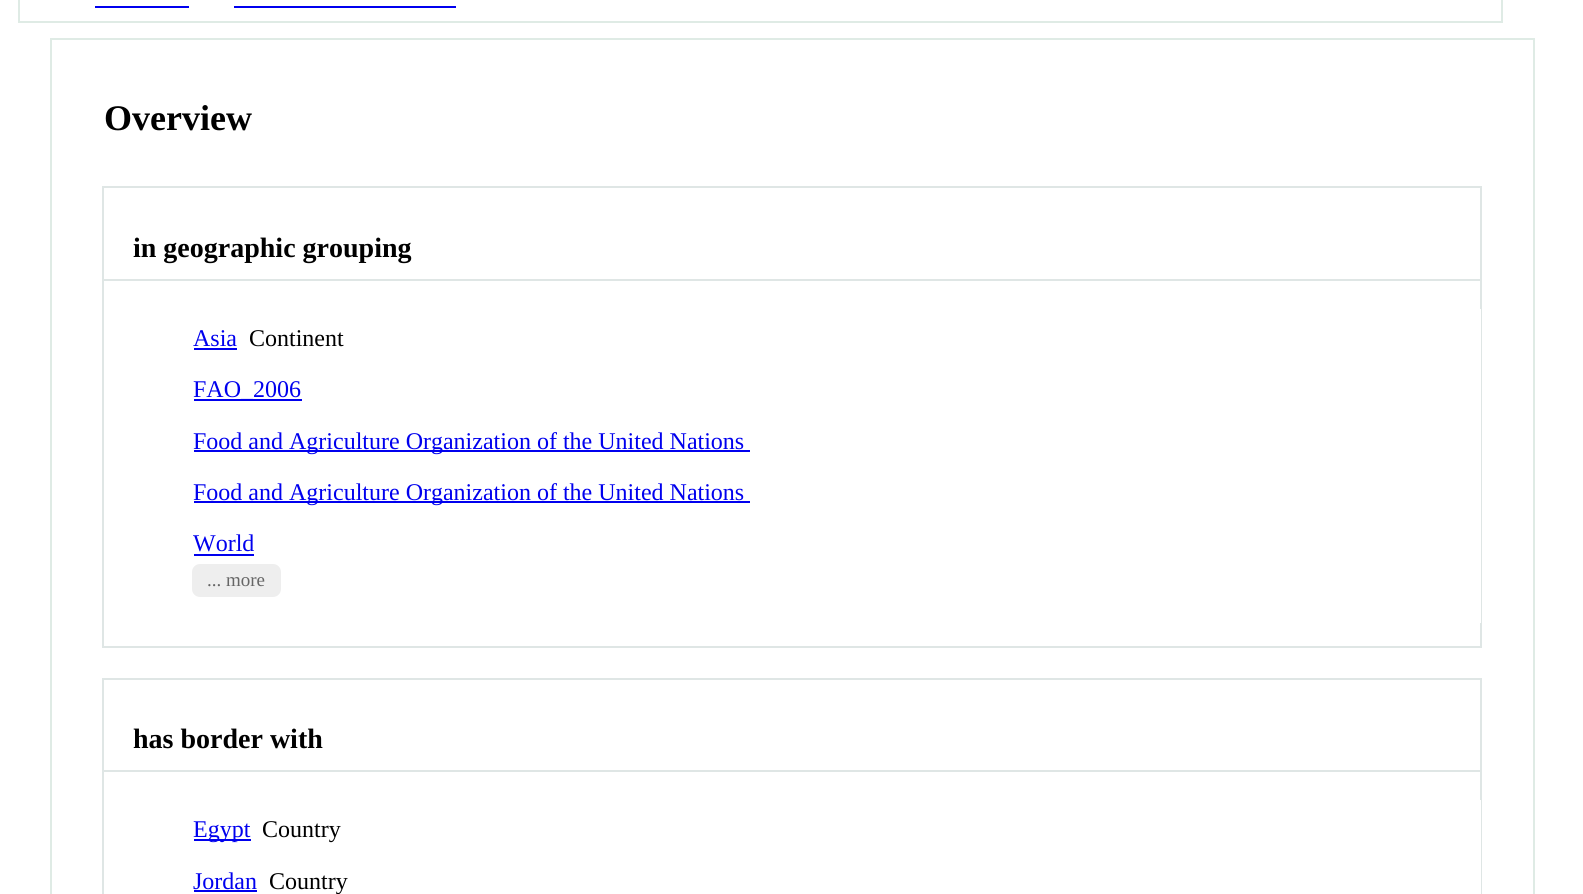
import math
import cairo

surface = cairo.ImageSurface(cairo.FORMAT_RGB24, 1583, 894)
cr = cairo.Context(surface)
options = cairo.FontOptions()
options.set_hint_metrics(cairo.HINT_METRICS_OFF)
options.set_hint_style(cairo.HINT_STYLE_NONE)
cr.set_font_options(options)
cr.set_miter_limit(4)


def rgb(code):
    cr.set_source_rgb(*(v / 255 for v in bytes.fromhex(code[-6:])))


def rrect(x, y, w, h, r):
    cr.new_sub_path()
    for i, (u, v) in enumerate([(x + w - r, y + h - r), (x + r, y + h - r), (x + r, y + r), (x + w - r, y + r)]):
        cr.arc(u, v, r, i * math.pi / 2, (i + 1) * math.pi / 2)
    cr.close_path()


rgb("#ffffff")
cr.paint()
cr.rectangle(19, -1, 1483, 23)
rgb("#dfebe5")
cr.stroke()
rgb("#0000ee")
cr.rectangle(95, 6, 94, 2)
cr.fill()
cr.rectangle(234, 6, 222, 2)
cr.fill()
cr.rectangle(51, 39, 1483, 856)
rgb("#dfebe5")
cr.stroke()
cr.rectangle(103, 187, 1378, 460)
rgb("#dfe6e5")
cr.stroke()
for x, y, w, h, color in [
    (104, 279, 1377, 2, "#dfe6e5"),
    (1480, 309, 1, 314, "#ffffff"),
    (194, 348, 43, 2, "#0000ee"),
    (194, 399, 108, 2, "#0000ee"),
    (194, 450, 556, 2, "#0000ee"),
    (194, 501, 556, 2, "#0000ee"),
    (194, 554, 60, 2, "#0000ee"),
]:
    rgb(color)
    cr.rectangle(x, y, w, h)
    cr.fill()
rgb("#eeeeee")
rrect(192, 564, 89, 33, 8)
cr.fill()
cr.rectangle(103, 679, 1378, 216)
rgb("#dfe6e5")
cr.stroke()
for x, y, w, h, color in [
    (104, 770, 1377, 2, "#dfe6e5"),
    (1480, 800, 1, 94, "#ffffff"),
    (194, 839, 57, 2, "#0000ee"),
    (194, 890, 63, 2, "#0000ee"),
]:
    rgb(color)
    cr.rectangle(x, y, w, h)
    cr.fill()
cr.select_font_face("Liberation Serif", cairo.FONT_SLANT_NORMAL, cairo.FONT_WEIGHT_BOLD)
cr.set_font_size(36)
rgb("#000000")
cr.move_to(104, 130)
cr.show_text("Overview")
cr.set_font_size(28)
cr.move_to(133, 257)
cr.show_text("in geographic grouping")
cr.select_font_face("Liberation Serif")
cr.set_font_size(24)
rgb("#0000ee")
cr.move_to(193, 346)
cr.show_text("Asia")
rgb("#000000")
cr.move_to(249, 346)
cr.show_text("Continent")
rgb("#0000ee")
for x, y, s in [
    (193, 397, "FAO_2006"),
    (193, 449, "Food and Agriculture Organization of the United Nations"),
    (193, 500, "Food and Agriculture Organization of the United Nations"),
    (193, 551, "World"),
]:
    cr.move_to(x, y)
    cr.show_text(s)
cr.set_font_size(19)
rgb("#666666")
cr.move_to(207, 586)
cr.show_text("... more")
cr.select_font_face("Liberation Serif", cairo.FONT_SLANT_NORMAL, cairo.FONT_WEIGHT_BOLD)
cr.set_font_size(28)
rgb("#000000")
cr.move_to(133, 748)
cr.show_text("has border with")
cr.select_font_face("Liberation Serif")
cr.set_font_size(24)
rgb("#0000ee")
cr.move_to(193, 837)
cr.show_text("Egypt")
rgb("#000000")
cr.move_to(262, 837)
cr.show_text("Country")
rgb("#0000ee")
cr.move_to(193, 889)
cr.show_text("Jordan")
rgb("#000000")
cr.move_to(269, 889)
cr.show_text("Country")
surface.write_to_png("page.png")
